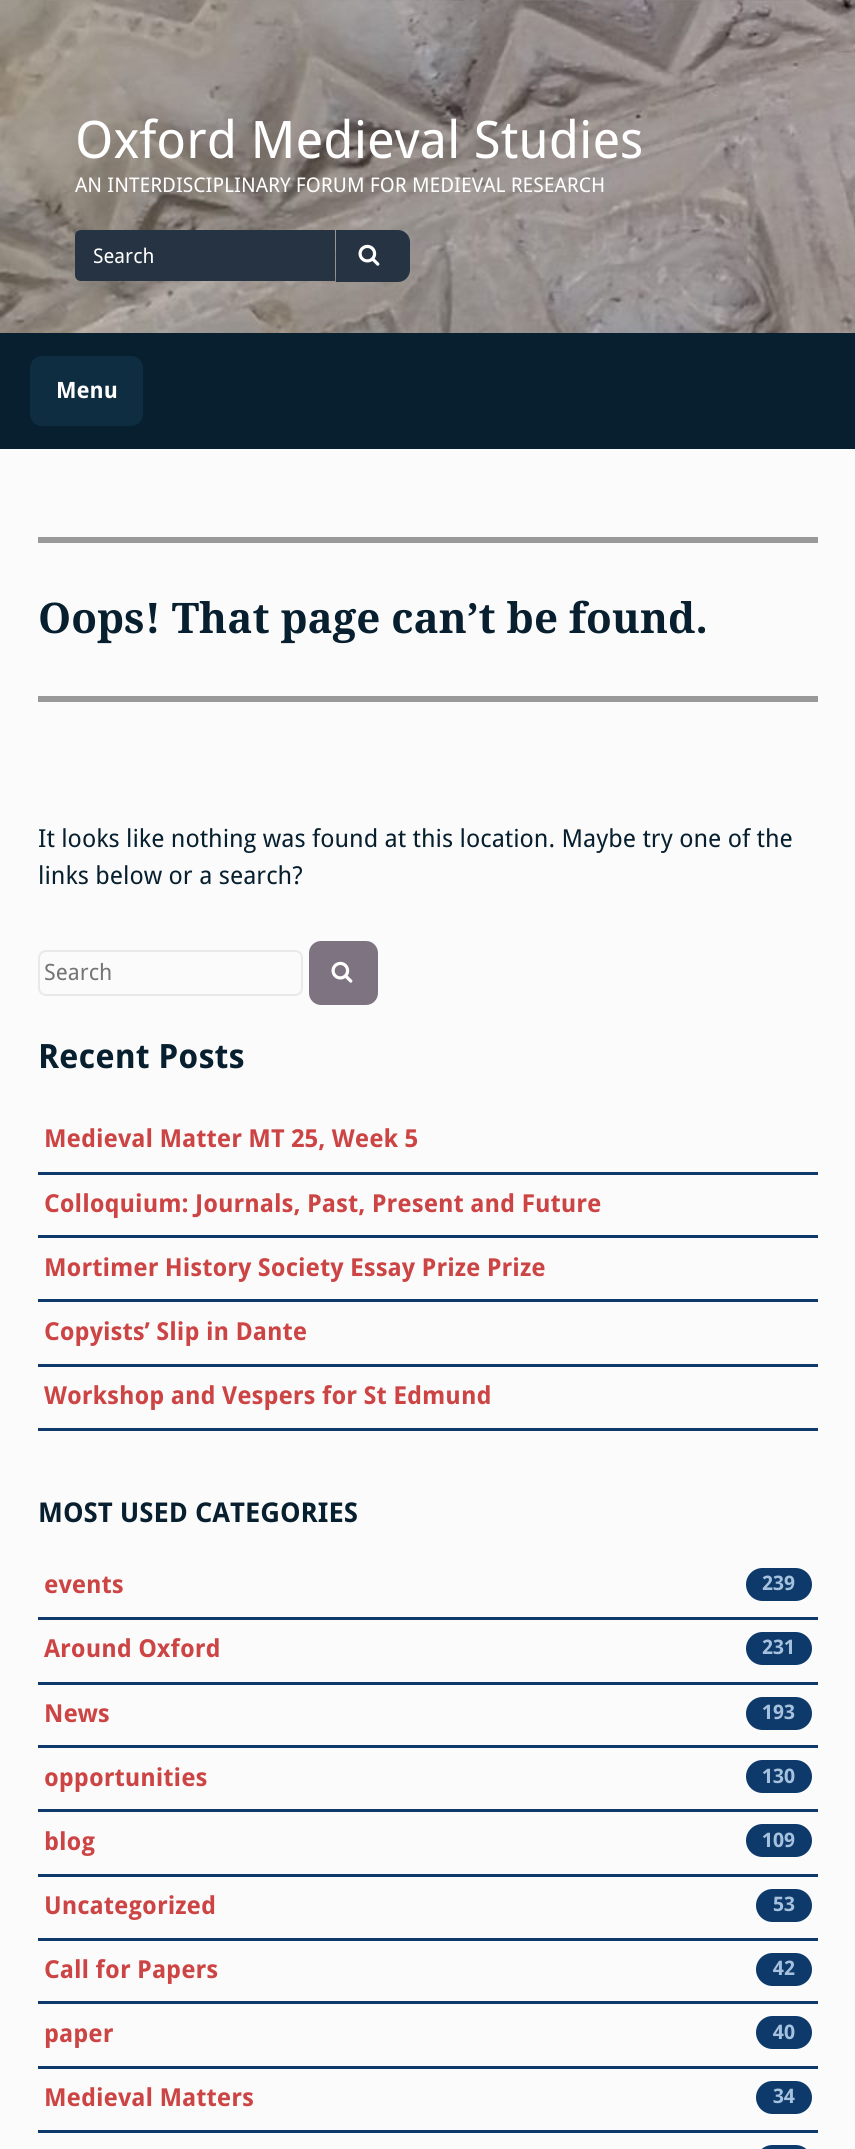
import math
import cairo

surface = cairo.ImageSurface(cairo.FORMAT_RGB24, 855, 2149)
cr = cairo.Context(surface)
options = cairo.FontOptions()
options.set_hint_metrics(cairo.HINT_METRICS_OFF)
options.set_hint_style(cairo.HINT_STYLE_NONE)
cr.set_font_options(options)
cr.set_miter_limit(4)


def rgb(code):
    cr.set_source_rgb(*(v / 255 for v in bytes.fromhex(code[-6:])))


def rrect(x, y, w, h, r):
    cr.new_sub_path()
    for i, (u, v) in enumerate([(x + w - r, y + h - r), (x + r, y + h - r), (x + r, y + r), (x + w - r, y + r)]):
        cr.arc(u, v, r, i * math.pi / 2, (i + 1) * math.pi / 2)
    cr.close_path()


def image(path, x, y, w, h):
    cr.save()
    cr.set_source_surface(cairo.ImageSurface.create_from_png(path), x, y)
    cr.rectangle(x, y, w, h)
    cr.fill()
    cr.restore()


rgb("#fbfbfb")
cr.paint()
image("img/1.png", 0, 0, 855, 333)
rgb("#263342")
cr.new_path()
cr.move_to(81, 230)
cr.line_to(335, 230)
cr.line_to(335, 281)
cr.line_to(81, 281)
cr.curve_to(77.5, 281, 75, 278.5, 75, 275)
cr.line_to(75, 236)
cr.curve_to(75, 232.5, 77.5, 230, 81, 230)
cr.close_path()
cr.fill()
cr.new_path()
cr.move_to(336, 230)
cr.line_to(398, 230)
cr.curve_to(404.5, 230, 410, 235.5, 410, 242)
cr.line_to(410, 270)
cr.curve_to(410, 276.5, 404.5, 282, 398, 282)
cr.line_to(336, 282)
cr.close_path()
cr.fill()
image("img/2.png", 358, 244, 22, 22)
rgb("#071f2e")
cr.rectangle(0, 333, 855, 116)
cr.fill()
rgb("#0e2d41")
rrect(31.5, 357.5, 110, 67, 10.5)
cr.fill_preserve()
cr.set_line_width(3)
cr.stroke()
rgb("#999999")
cr.rectangle(38, 537, 780, 6)
cr.fill()
cr.rectangle(38, 696, 780, 6)
cr.fill()
rrect(39, 951, 263, 44, 7)
rgb("#e9e9e9")
cr.set_line_width(2)
cr.stroke()
rgb("#7e7380")
rrect(309, 941, 69, 64, 12)
cr.fill()
image("img/3.png", 331, 961, 22, 22)
for x, y, w, h, color in [
    (38, 1172, 780, 3, "#0e3a6b"),
    (38, 1235, 780, 3, "#0e3a6b"),
    (38, 1299, 780, 3, "#0e3a6b"),
    (38, 1364, 780, 3, "#0e3a6b"),
    (38, 1428, 780, 3, "#0e3a6b"),
    (38, 1617, 780, 3, "#0e3a6b"),
]:
    rgb(color)
    cr.rectangle(x, y, w, h)
    cr.fill()
rrect(746, 1568, 66, 33, 16.5)
cr.fill()
cr.rectangle(38, 1682, 780, 3)
cr.fill()
rrect(746, 1632, 66, 33, 16.5)
cr.fill()
cr.rectangle(38, 1745, 780, 3)
cr.fill()
rrect(746, 1697, 66, 33, 16.5)
cr.fill()
cr.rectangle(38, 1809, 780, 3)
cr.fill()
rrect(746, 1760, 66, 33, 16.5)
cr.fill()
cr.rectangle(38, 1874, 780, 3)
cr.fill()
rrect(746, 1824, 66, 33, 16.5)
cr.fill()
cr.rectangle(38, 1938, 780, 3)
cr.fill()
rrect(756, 1889, 56, 33, 16.5)
cr.fill()
cr.rectangle(38, 2001, 780, 3)
cr.fill()
rrect(756, 1953, 56, 33, 16.5)
cr.fill()
cr.rectangle(38, 2066, 780, 3)
cr.fill()
rrect(756, 2016, 56, 33, 16.5)
cr.fill()
cr.rectangle(38, 2130, 780, 3)
cr.fill()
rrect(756, 2081, 56, 33, 16.5)
cr.fill()
rrect(756, 2145, 56, 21, 16.5)
cr.fill()
cr.select_font_face("Droid Sans")
cr.set_font_size(51.75)
rgb("#ffffff")
cr.move_to(75, 158)
cr.show_text("Oxford Medieval Studies")
cr.set_font_size(20.25)
cr.move_to(75, 192)
cr.show_text("AN INTERDISCIPLINARY FORUM FOR MEDIEVAL RESEARCH")
cr.move_to(93, 263)
cr.show_text("Search")
cr.select_font_face("Droid Sans", cairo.FONT_SLANT_NORMAL, cairo.FONT_WEIGHT_BOLD)
cr.set_font_size(22.5)
cr.move_to(56, 398)
cr.show_text("Menu")
cr.select_font_face("Droid Serif", cairo.FONT_SLANT_NORMAL, cairo.FONT_WEIGHT_BOLD)
cr.set_font_size(42.1)
rgb("#071f2e")
cr.move_to(38, 633)
cr.show_text("Oops! That page can’t be found.")
cr.select_font_face("Droid Sans")
cr.set_font_size(24.75)
cr.move_to(38, 847)
cr.show_text("It looks like nothing was found at this location. Maybe try one of the")
cr.move_to(38, 884)
cr.show_text("links below or a search?")
cr.set_font_size(22.5)
rgb("#757575")
cr.move_to(44, 980)
cr.show_text("Search")
cr.select_font_face("Droid Sans", cairo.FONT_SLANT_NORMAL, cairo.FONT_WEIGHT_BOLD)
cr.set_font_size(33.5)
rgb("#071f2e")
cr.move_to(38, 1068)
cr.show_text("Recent Posts")
cr.set_font_size(24.75)
rgb("#cd4444")
for x, y, s in [
    (44, 1147, "Medieval Matter MT 25, Week 5"),
    (44, 1212, "Colloquium: Journals, Past, Present and Future"),
    (44, 1276, "Mortimer History Society Essay Prize Prize"),
    (44, 1340, "Copyists’ Slip in Dante"),
    (44, 1404, "Workshop and Vespers for St Edmund"),
]:
    cr.move_to(x, y)
    cr.show_text(s)
cr.set_font_size(27.25)
rgb("#071f2e")
cr.move_to(38, 1522)
cr.show_text("MOST USED CATEGORIES")
cr.set_font_size(24.75)
rgb("#cd4444")
cr.move_to(44, 1593)
cr.show_text("events")
cr.set_font_size(20)
rgb("#a6c1dd")
cr.move_to(762, 1590)
cr.show_text("239")
cr.set_font_size(24.75)
rgb("#cd4444")
cr.move_to(44, 1657)
cr.show_text("Around Oxford")
cr.set_font_size(20)
rgb("#a6c1dd")
cr.move_to(762, 1654)
cr.show_text("231")
cr.set_font_size(24.75)
rgb("#cd4444")
cr.move_to(44, 1722)
cr.show_text("News")
cr.set_font_size(20)
rgb("#a6c1dd")
cr.move_to(762, 1719)
cr.show_text("193")
cr.set_font_size(24.75)
rgb("#cd4444")
cr.move_to(44, 1786)
cr.show_text("opportunities")
cr.set_font_size(20)
rgb("#a6c1dd")
cr.move_to(762, 1783)
cr.show_text("130")
cr.set_font_size(24.75)
rgb("#cd4444")
cr.move_to(44, 1850)
cr.show_text("blog")
cr.set_font_size(20)
rgb("#a6c1dd")
cr.move_to(762, 1847)
cr.show_text("109")
cr.set_font_size(24.75)
rgb("#cd4444")
cr.move_to(44, 1914)
cr.show_text("Uncategorized")
cr.set_font_size(20)
rgb("#a6c1dd")
cr.move_to(773, 1911)
cr.show_text("53")
cr.set_font_size(24.75)
rgb("#cd4444")
cr.move_to(44, 1978)
cr.show_text("Call for Papers")
cr.set_font_size(20)
rgb("#a6c1dd")
cr.move_to(773, 1975)
cr.show_text("42")
cr.set_font_size(24.75)
rgb("#cd4444")
cr.move_to(44, 2042)
cr.show_text("paper")
cr.set_font_size(20)
rgb("#a6c1dd")
cr.move_to(773, 2039)
cr.show_text("40")
cr.set_font_size(24.75)
rgb("#cd4444")
cr.move_to(44, 2106)
cr.show_text("Medieval Matters")
cr.set_font_size(20)
rgb("#a6c1dd")
cr.move_to(773, 2103)
cr.show_text("34")
surface.write_to_png("page.png")
